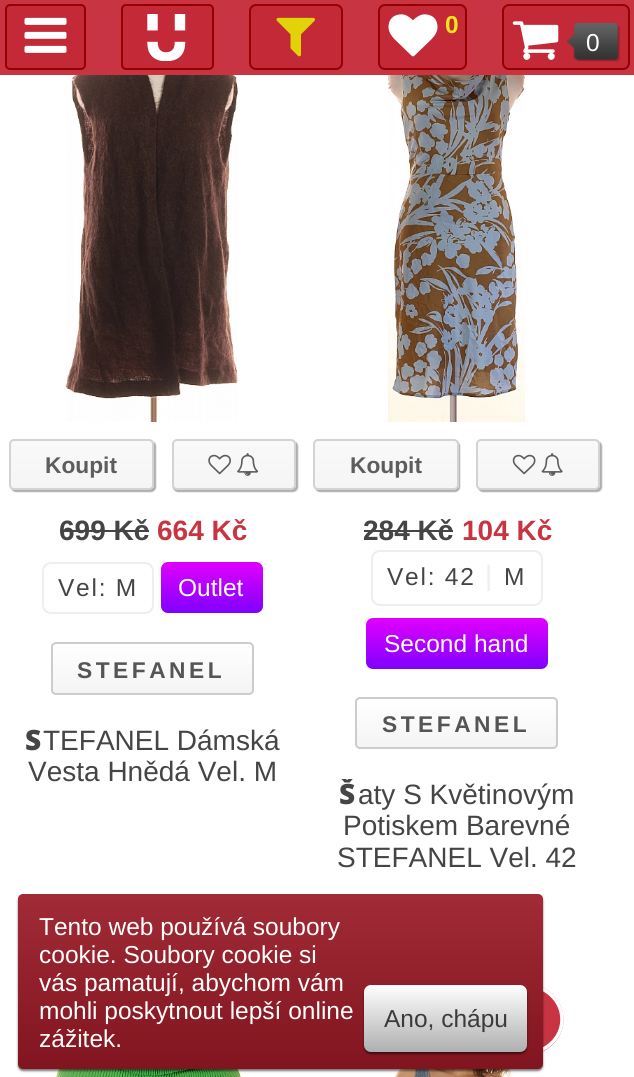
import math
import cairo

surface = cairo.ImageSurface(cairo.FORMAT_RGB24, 634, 1077)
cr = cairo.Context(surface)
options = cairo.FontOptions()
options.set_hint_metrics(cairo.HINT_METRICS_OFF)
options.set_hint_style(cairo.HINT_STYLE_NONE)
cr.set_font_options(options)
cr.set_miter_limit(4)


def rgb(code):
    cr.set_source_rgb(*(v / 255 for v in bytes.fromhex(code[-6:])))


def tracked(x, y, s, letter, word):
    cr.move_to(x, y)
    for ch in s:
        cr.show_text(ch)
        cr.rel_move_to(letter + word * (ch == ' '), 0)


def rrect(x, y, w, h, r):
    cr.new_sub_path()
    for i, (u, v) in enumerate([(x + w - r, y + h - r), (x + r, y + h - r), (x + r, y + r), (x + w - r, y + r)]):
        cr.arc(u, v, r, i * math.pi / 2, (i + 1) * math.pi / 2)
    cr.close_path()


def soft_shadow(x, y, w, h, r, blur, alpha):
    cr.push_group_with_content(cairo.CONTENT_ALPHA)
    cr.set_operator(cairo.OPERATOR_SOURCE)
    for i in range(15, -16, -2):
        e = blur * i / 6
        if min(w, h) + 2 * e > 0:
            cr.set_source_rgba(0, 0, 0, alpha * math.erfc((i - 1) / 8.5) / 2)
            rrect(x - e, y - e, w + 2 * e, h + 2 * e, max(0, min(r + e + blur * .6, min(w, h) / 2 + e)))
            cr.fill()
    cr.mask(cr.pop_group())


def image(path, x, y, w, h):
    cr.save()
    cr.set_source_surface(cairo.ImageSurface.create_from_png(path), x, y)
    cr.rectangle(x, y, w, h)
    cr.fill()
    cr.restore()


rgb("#ffffff")
cr.paint()
rgb("#c83442")
cr.rectangle(0, 0, 634, 75)
cr.fill()
rgb("#c42938")
rrect(6, 5, 79, 64, 4)
cr.fill_preserve()
rgb("#960000")
cr.stroke()
image("img/1.png", 24, 17, 43, 36)
rgb("#c42938")
rrect(122, 5, 91, 64, 4)
cr.fill_preserve()
rgb("#960000")
cr.stroke()
image("img/2.png", 147, 14, 39, 47)
rgb("#c42938")
rrect(250, 5, 92, 64, 6)
cr.fill_preserve()
rgb("#960000")
cr.stroke()
image("img/3.png", 276, 17, 39, 40)
rgb("#c42938")
rrect(379, 5, 87, 64, 6)
cr.fill_preserve()
rgb("#960000")
cr.stroke()
image("img/4.png", 388, 14, 50, 43)
rgb("#c42938")
rrect(503, 5, 126, 64, 6)
cr.fill_preserve()
rgb("#960000")
cr.stroke()
image("img/5.png", 512, 21, 47, 39)
image("img/6.png", 567, 22, 53, 40)
image("img/7.png", 65, 75, 173, 347)
rgb("#000000")
soft_shadow(11, 441, 145, 51, 5, 0.5, 0.32)
cr.save()
rrect(9, 439, 145, 51, 5)
cr.clip()
gradient = cairo.LinearGradient(81, 441, 81, 488)
gradient.add_color_stop_rgba(0, 0.976, 0.976, 0.976, 1)
gradient.add_color_stop_rgba(1, 0.961, 0.961, 0.961, 1)
cr.set_source(gradient)
cr.rectangle(9, 441, 145, 47)
cr.fill()
cr.restore()
rrect(10, 440, 143, 49, 4)
rgb("#d4d3d3")
cr.stroke()
rgb("#000000")
soft_shadow(173, 441, 125, 51, 5, 0.5, 0.32)
cr.save()
rrect(172, 439, 124, 51, 5)
cr.clip()
gradient = cairo.LinearGradient(234, 441, 234, 488)
gradient.add_color_stop_rgba(0, 0.976, 0.976, 0.976, 1)
gradient.add_color_stop_rgba(1, 0.961, 0.961, 0.961, 1)
cr.set_source(gradient)
cr.rectangle(172, 441, 124, 47)
cr.fill()
cr.restore()
rrect(173, 440, 122, 49, 4)
rgb("#d4d3d3")
cr.stroke()
image("img/8.png", 208, 454, 23, 21)
image("img/9.png", 237, 453, 22, 23)
rgb("#454545")
cr.rectangle(60, 530, 89, 2)
cr.fill()
rrect(43, 563, 110, 50, 8)
rgb("#eeeeee")
cr.stroke()
gradient = cairo.LinearGradient(212, 562, 212, 613)
gradient.add_color_stop_rgba(0, 0.882, 0, 1, 1)
gradient.add_color_stop_rgba(1, 0.498, 0, 1, 1)
cr.set_source(gradient)
rrect(161, 562, 102, 51, 7)
cr.fill()
cr.save()
rrect(51, 642, 203, 53, 5)
cr.clip()
gradient = cairo.LinearGradient(152, 644, 152, 693)
gradient.add_color_stop_rgba(0, 1, 1, 1, 1)
gradient.add_color_stop_rgba(1, 0.957, 0.957, 0.957, 1)
cr.set_source(gradient)
cr.rectangle(51, 644, 203, 49)
cr.fill()
cr.restore()
rrect(52, 643, 201, 51, 4)
rgb("#cccccc")
cr.stroke()
image("img/10.png", 387, 75, 138, 347)
rgb("#000000")
soft_shadow(315, 441, 145, 51, 5, 0.5, 0.32)
cr.save()
rrect(313, 439, 146, 51, 5)
cr.clip()
gradient = cairo.LinearGradient(386, 441, 386, 488)
gradient.add_color_stop_rgba(0, 0.976, 0.976, 0.976, 1)
gradient.add_color_stop_rgba(1, 0.961, 0.961, 0.961, 1)
cr.set_source(gradient)
cr.rectangle(313, 441, 146, 47)
cr.fill()
cr.restore()
rrect(314, 440, 144, 49, 4)
rgb("#d4d3d3")
cr.stroke()
rgb("#000000")
soft_shadow(478, 441, 124, 51, 5, 0.5, 0.32)
cr.save()
rrect(476, 439, 124, 51, 5)
cr.clip()
gradient = cairo.LinearGradient(538, 441, 538, 488)
gradient.add_color_stop_rgba(0, 0.976, 0.976, 0.976, 1)
gradient.add_color_stop_rgba(1, 0.961, 0.961, 0.961, 1)
cr.set_source(gradient)
cr.rectangle(476, 441, 124, 47)
cr.fill()
cr.restore()
rrect(477, 440, 122, 49, 4)
rgb("#d4d3d3")
cr.stroke()
image("img/11.png", 512, 454, 24, 21)
image("img/12.png", 541, 453, 22, 23)
rgb("#454545")
cr.rectangle(364, 530, 89, 2)
cr.fill()
rrect(372, 551, 170, 54, 8)
rgb("#eeeeee")
cr.stroke()
gradient = cairo.LinearGradient(457, 618, 457, 669)
gradient.add_color_stop_rgba(0, 0.882, 0, 1, 1)
gradient.add_color_stop_rgba(1, 0.498, 0, 1, 1)
cr.set_source(gradient)
rrect(366, 618, 182, 51, 7)
cr.fill()
cr.save()
rrect(355, 697, 203, 52, 5)
cr.clip()
gradient = cairo.LinearGradient(457, 698, 457, 747)
gradient.add_color_stop_rgba(0, 1, 1, 1, 1)
gradient.add_color_stop_rgba(1, 0.957, 0.957, 0.957, 1)
cr.set_source(gradient)
cr.rectangle(355, 698, 203, 49)
cr.fill()
cr.restore()
rrect(356, 698, 201, 50, 4)
rgb("#cccccc")
cr.stroke()
image("img/13.png", 55, 1069, 186, 8)
rgb("#c83442")
cr.new_path()
cr.move_to(525, 983.5)
cr.curve_to(546.5, 983.5, 563.5, 999.5, 563.5, 1019.5)
cr.curve_to(563.5, 1039.5, 546.5, 1055.5, 525, 1055.5)
cr.curve_to(503.5, 1055.5, 486.5, 1039.5, 486.5, 1019.5)
cr.curve_to(486.5, 999.5, 503.5, 983.5, 525, 983.5)
cr.close_path()
cr.fill()
cr.new_path()
cr.move_to(525, 985)
cr.curve_to(545.5, 985, 562, 1000.5, 562, 1019.5)
cr.curve_to(562, 1038, 545.5, 1053.5, 525, 1053.5)
cr.curve_to(504.5, 1053.5, 488, 1038, 488, 1019.5)
cr.curve_to(488, 1000.5, 504.5, 985, 525, 985)
cr.close_path()
rgb("#ffffff")
cr.set_line_width(3.5)
cr.stroke()
image("img/14.png", 394, 1069, 122, 8)
rgb("#000000")
soft_shadow(18, 896, 525, 175, 5, 1, 0.52)
gradient = cairo.LinearGradient(280, 894, 280, 1069)
gradient.add_color_stop_rgba(0, 0.631, 0.169, 0.212, 1)
gradient.add_color_stop_rgba(1, 0.506, 0.082, 0.122, 1)
cr.set_source(gradient)
rrect(18, 894, 525, 175, 5)
cr.fill()
rgb("#000000")
soft_shadow(364, 987, 163, 67, 7, 1, 0.52)
gradient = cairo.LinearGradient(445, 985, 445, 1052)
gradient.add_color_stop_rgba(0, 1, 1, 1, 1)
gradient.add_color_stop_rgba(1, 0.686, 0.686, 0.686, 1)
cr.set_source(gradient)
rrect(364, 985, 163, 67, 7)
cr.fill()
cr.select_font_face("Liberation Sans", cairo.FONT_SLANT_NORMAL, cairo.FONT_WEIGHT_BOLD)
cr.set_font_size(24.5)
rgb("#f3e418")
cr.move_to(445, 33)
cr.show_text("0")
cr.select_font_face("Liberation Sans")
rgb("#ffffff")
cr.move_to(586, 51)
cr.show_text("0")
cr.select_font_face("Liberation Sans", cairo.FONT_SLANT_NORMAL, cairo.FONT_WEIGHT_BOLD)
cr.set_font_size(22.75)
rgb("#5d5d5d")
cr.move_to(45, 473)
cr.show_text("Koupit")
cr.set_font_size(28)
rgb("#454545")
cr.move_to(59, 540)
cr.show_text("699 Kč")
rgb("#c83442")
cr.move_to(157, 540)
cr.show_text("664 Kč")
cr.select_font_face("Liberation Sans")
cr.set_font_size(24.5)
rgb("#454545")
tracked(58, 596, "Vel: M", 1.75, 0)
rgb("#ffffff")
cr.move_to(178, 596)
cr.show_text("Outlet")
cr.select_font_face("Liberation Sans", cairo.FONT_SLANT_NORMAL, cairo.FONT_WEIGHT_BOLD)
cr.set_font_size(22.75)
rgb("#555555")
tracked(77, 678, "STEFANEL", 3.5, 0)
cr.select_font_face("Noto Sans Black")
cr.set_font_size(28)
rgb("#454545")
cr.move_to(25, 750)
cr.show_text("S")
cr.select_font_face("Liberation Sans")
cr.move_to(43, 750)
cr.show_text("TEFANEL Dámská")
cr.move_to(28, 781)
cr.show_text("Vesta Hnědá Vel. M")
cr.select_font_face("Liberation Sans", cairo.FONT_SLANT_NORMAL, cairo.FONT_WEIGHT_BOLD)
cr.set_font_size(22.75)
rgb("#5d5d5d")
cr.move_to(350, 473)
cr.show_text("Koupit")
cr.set_font_size(28)
rgb("#454545")
cr.move_to(363, 540)
cr.show_text("284 Kč")
rgb("#c83442")
cr.move_to(462, 540)
cr.show_text("104 Kč")
cr.select_font_face("Liberation Sans")
cr.set_font_size(24.5)
rgb("#454545")
tracked(387, 585, "Vel: 42", 1.75, 0)
cr.set_font_size(28)
rgb("#eeeeee")
tracked(485, 585, "|", 1.75, 0)
cr.set_font_size(24.5)
rgb("#454545")
tracked(504, 585, "M", 1.75, 0)
rgb("#ffffff")
cr.move_to(384, 652)
cr.show_text("Second hand")
cr.select_font_face("Liberation Sans", cairo.FONT_SLANT_NORMAL, cairo.FONT_WEIGHT_BOLD)
cr.set_font_size(22.75)
rgb("#555555")
tracked(382, 732, "STEFANEL", 3.5, 0)
cr.save()
cr.rectangle(305, 779, 304, 94)
cr.clip()
cr.select_font_face("Noto Sans Black")
cr.set_font_size(28)
rgb("#454545")
cr.move_to(339, 804)
cr.show_text("Š")
cr.restore()
cr.select_font_face("Liberation Sans")
cr.set_font_size(28)
rgb("#454545")
for x, y, s in [
    (358, 804, "aty S Květinovým"),
    (343, 835, "Potiskem Barevné"),
    (337, 867, "STEFANEL Vel. 42"),
]:
    cr.move_to(x, y)
    cr.show_text(s)
cr.set_font_size(24.5)
rgb("#ffffff")
for x, y, s in [
    (39, 935, "Tento web používá soubory"),
    (39, 963, "cookie. Soubory cookie si"),
    (39, 991, "vás pamatují, abychom vám"),
    (39, 1019, "mohli poskytnout lepší online"),
    (39, 1047, "zážitek."),
]:
    cr.move_to(x, y)
    cr.show_text(s)
rgb("#3b3b3b")
cr.move_to(384, 1027)
cr.show_text("Ano, chápu")
surface.write_to_png("page.png")
